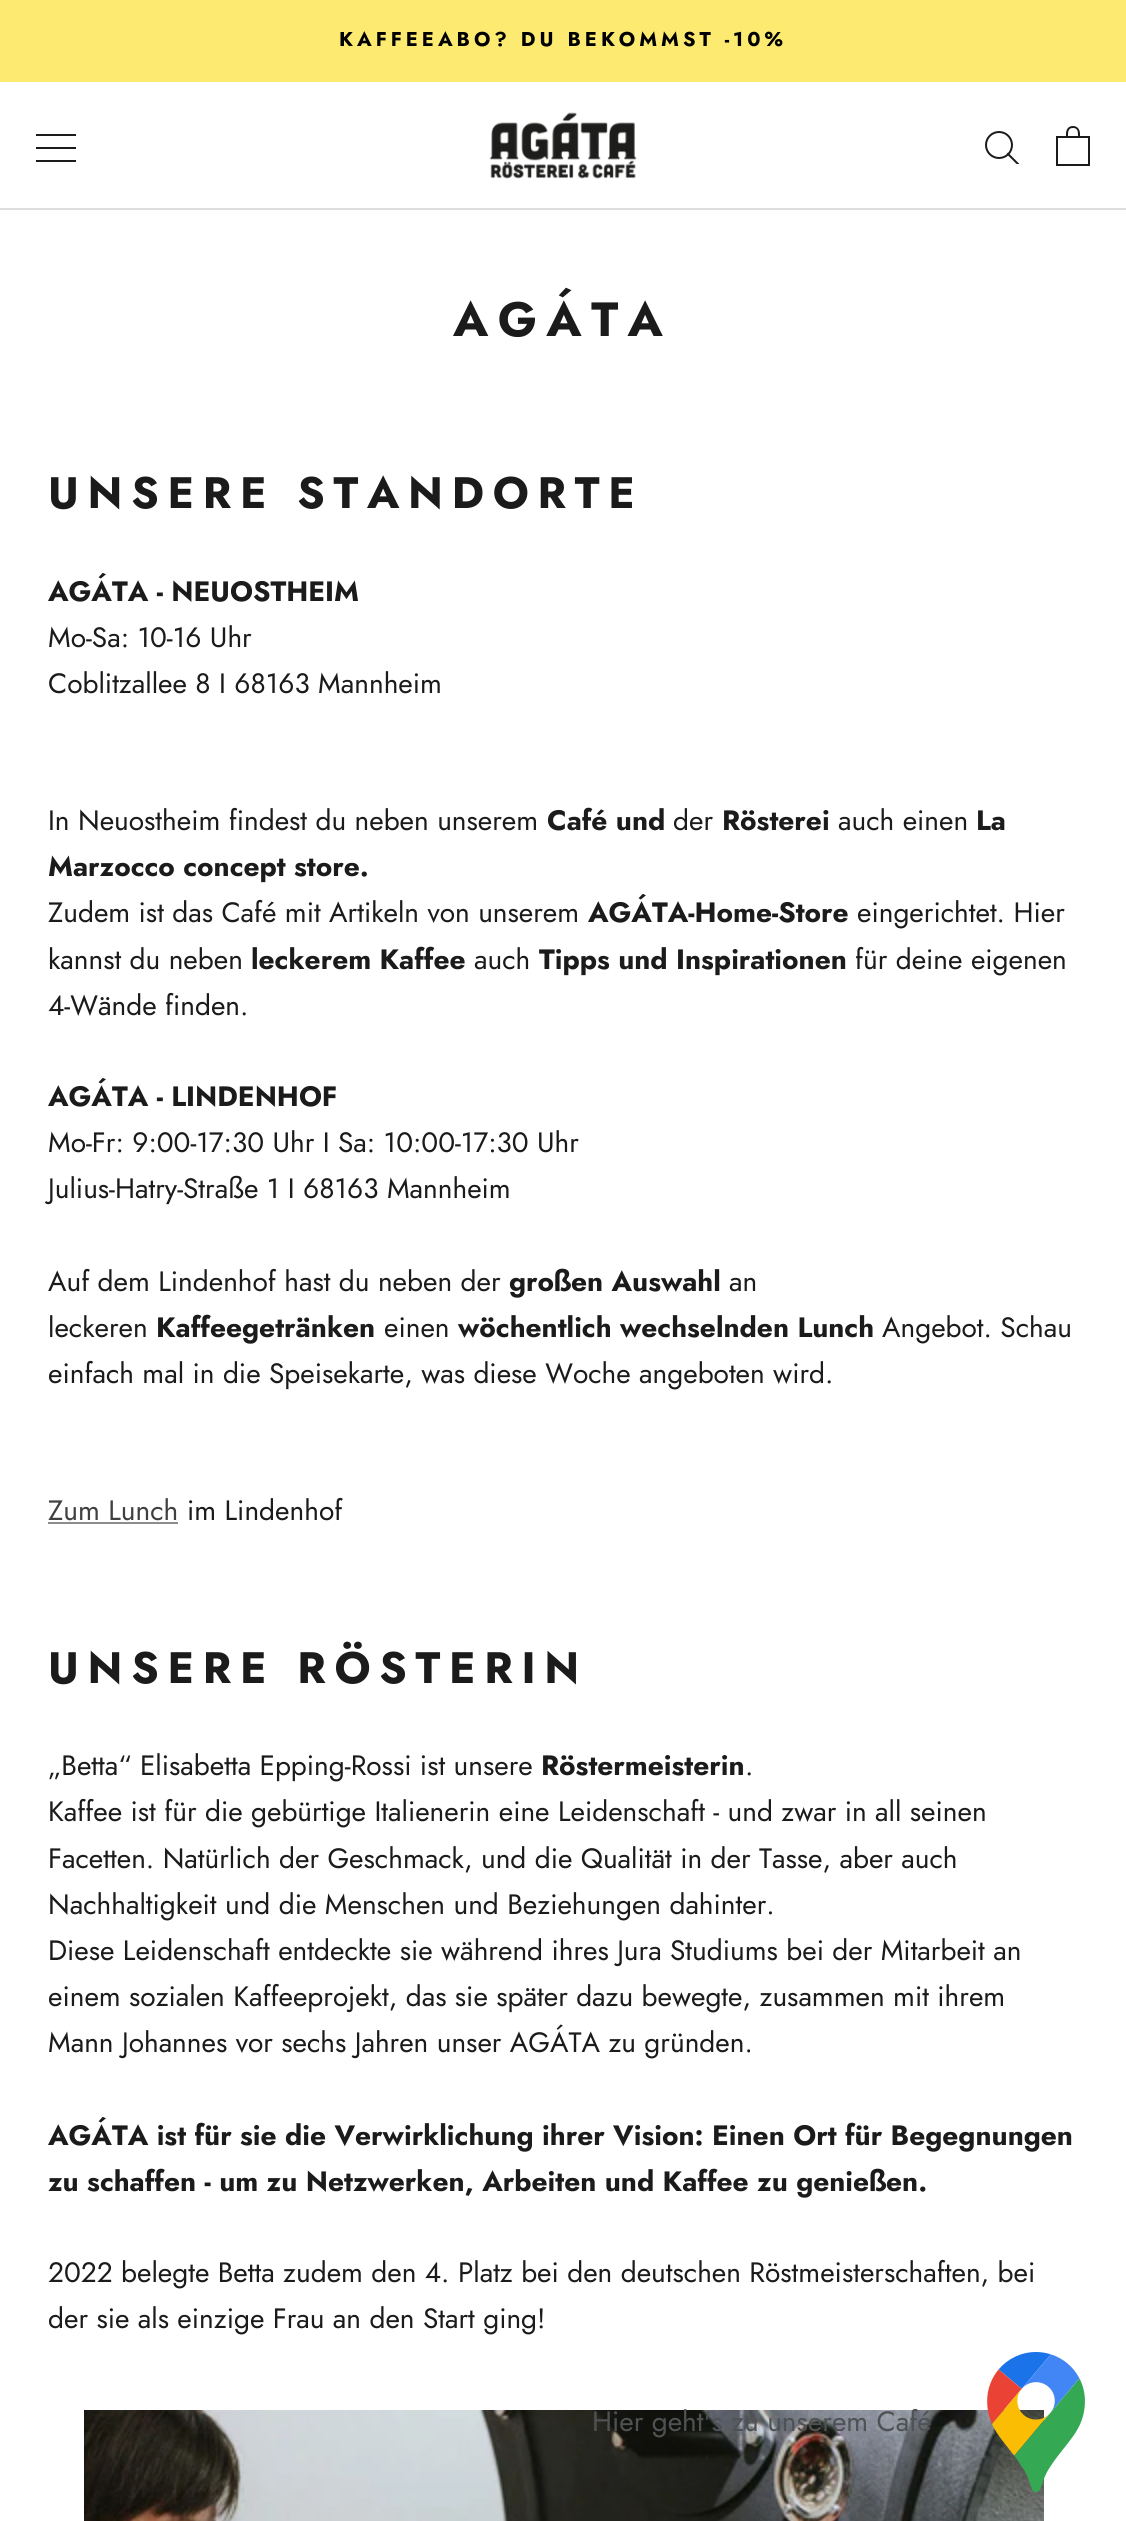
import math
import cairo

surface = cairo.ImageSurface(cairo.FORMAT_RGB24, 1126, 2521)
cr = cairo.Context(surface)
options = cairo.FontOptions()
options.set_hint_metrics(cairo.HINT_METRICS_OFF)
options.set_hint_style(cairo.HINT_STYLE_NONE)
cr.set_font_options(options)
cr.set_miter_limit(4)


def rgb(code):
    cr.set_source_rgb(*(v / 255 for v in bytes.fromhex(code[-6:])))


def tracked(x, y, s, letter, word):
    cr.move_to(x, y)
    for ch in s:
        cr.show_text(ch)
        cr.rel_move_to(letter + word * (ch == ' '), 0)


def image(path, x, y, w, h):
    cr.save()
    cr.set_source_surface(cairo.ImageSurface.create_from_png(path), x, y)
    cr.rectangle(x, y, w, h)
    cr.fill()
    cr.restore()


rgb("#ffffff")
cr.paint()
rgb("#fcea71")
cr.rectangle(0, 0, 1126, 82)
cr.fill()
rgb("#dddddd")
cr.rectangle(0, 208, 1126, 2)
cr.fill()
rgb("#1c1b1b")
cr.new_path()
cr.move_to(36, 162)
cr.line_to(36, 160)
cr.line_to(76, 160)
cr.line_to(76, 162)
cr.close_path()
cr.move_to(36, 147)
cr.line_to(76, 147)
cr.line_to(76, 149)
cr.line_to(36, 149)
cr.close_path()
cr.move_to(36, 134)
cr.line_to(76, 134)
cr.line_to(76, 136)
cr.line_to(36, 136)
cr.close_path()
cr.fill()
image("img/1.png", 489, 112, 148, 67)
cr.save()
cr.rectangle(984, 130, 36, 34)
cr.clip()
cr.new_path()
cr.move_to(1018, 164)
cr.line_to(1008, 154)
cr.set_line_cap(cairo.LINE_CAP_SQUARE)
cr.stroke()
cr.restore()
cr.arc(999, 145, 13, 0, 2 * math.pi)
cr.stroke()
image("img/2.png", 1056, 126, 34, 40)
rgb("#8c8c8c")
cr.rectangle(48, 1522, 130, 2)
cr.fill()
image("img/3.png", 84, 2410, 960, 111)
image("img/4.png", 987, 2352, 98, 140)
cr.select_font_face("Jost", cairo.FONT_SLANT_NORMAL, cairo.FONT_WEIGHT_BOLD)
cr.set_font_size(20)
rgb("#000000")
tracked(339, 46, "KAFFEEABO? DU BEKOMMST -10%", 4, 0)
cr.set_font_size(48)
rgb("#1c1b1b")
tracked(453, 336, "AGÁTA", 9.5, 0)
cr.set_font_size(44)
tracked(48, 508, "UNSERE STANDORTE", 8.75, 0)
cr.set_font_size(28)
cr.move_to(48, 601)
cr.show_text("AGÁTA - NEUOSTHEIM")
cr.select_font_face("Jost")
for x, y, s in [
    (48, 647, "Mo-Sa: 10-16 Uhr"),
    (48, 693, "Coblitzallee 8 I 68163 Mannheim"),
    (48, 830, "In Neuostheim findest du neben unserem"),
]:
    cr.move_to(x, y)
    cr.show_text(s)
cr.select_font_face("Jost", cairo.FONT_SLANT_NORMAL, cairo.FONT_WEIGHT_BOLD)
cr.move_to(547, 830)
cr.show_text("Café und")
cr.select_font_face("Jost")
cr.move_to(673, 830)
cr.show_text("der")
cr.select_font_face("Jost", cairo.FONT_SLANT_NORMAL, cairo.FONT_WEIGHT_BOLD)
cr.move_to(722, 830)
cr.show_text("Rösterei")
cr.select_font_face("Jost")
cr.move_to(838, 830)
cr.show_text("auch einen")
cr.select_font_face("Jost", cairo.FONT_SLANT_NORMAL, cairo.FONT_WEIGHT_BOLD)
cr.move_to(976, 830)
cr.show_text("La")
cr.move_to(48, 876)
cr.show_text("Marzocco concept store.")
cr.select_font_face("Jost")
cr.move_to(48, 922)
cr.show_text("Zudem ist das Café mit Artikeln von unserem")
cr.select_font_face("Jost", cairo.FONT_SLANT_NORMAL, cairo.FONT_WEIGHT_BOLD)
cr.move_to(588, 922)
cr.show_text("AGÁTA-Home-Store")
cr.select_font_face("Jost")
cr.move_to(857, 922)
cr.show_text("eingerichtet. Hier")
cr.move_to(48, 969)
cr.show_text("kannst du neben")
cr.select_font_face("Jost", cairo.FONT_SLANT_NORMAL, cairo.FONT_WEIGHT_BOLD)
cr.move_to(251, 969)
cr.show_text("leckerem Kaffee")
cr.select_font_face("Jost")
cr.move_to(474, 969)
cr.show_text("auch")
cr.select_font_face("Jost", cairo.FONT_SLANT_NORMAL, cairo.FONT_WEIGHT_BOLD)
cr.move_to(539, 969)
cr.show_text("Tipps und Inspirationen")
cr.select_font_face("Jost")
cr.move_to(855, 969)
cr.show_text("für deine eigenen")
cr.move_to(48, 1015)
cr.show_text("4-Wände finden.")
cr.select_font_face("Jost", cairo.FONT_SLANT_NORMAL, cairo.FONT_WEIGHT_BOLD)
cr.move_to(48, 1106)
cr.show_text("AGÁTA - LINDENHOF")
cr.select_font_face("Jost")
for x, y, s in [
    (48, 1152, "Mo-Fr: 9:00-17:30 Uhr I Sa: 10:00-17:30 Uhr"),
    (48, 1198, "Julius-Hatry-Straße 1 I 68163 Mannheim"),
    (48, 1291, "Auf dem Lindenhof hast du neben der"),
]:
    cr.move_to(x, y)
    cr.show_text(s)
cr.select_font_face("Jost", cairo.FONT_SLANT_NORMAL, cairo.FONT_WEIGHT_BOLD)
cr.move_to(509, 1291)
cr.show_text("großen Auswahl")
cr.select_font_face("Jost")
cr.move_to(729, 1291)
cr.show_text("an")
cr.move_to(48, 1337)
cr.show_text("leckeren")
cr.select_font_face("Jost", cairo.FONT_SLANT_NORMAL, cairo.FONT_WEIGHT_BOLD)
cr.move_to(156, 1337)
cr.show_text("Kaffeegetränken")
cr.select_font_face("Jost")
cr.move_to(384, 1337)
cr.show_text("einen")
cr.select_font_face("Jost", cairo.FONT_SLANT_NORMAL, cairo.FONT_WEIGHT_BOLD)
cr.move_to(458, 1337)
cr.show_text("wöchentlich wechselnden Lunch")
cr.select_font_face("Jost")
cr.move_to(882, 1337)
cr.show_text("Angebot. Schau")
cr.move_to(48, 1383)
cr.show_text("einfach mal in die Speisekarte, was diese Woche angeboten wird.")
rgb("#404040")
cr.move_to(48, 1520)
cr.show_text("Zum Lunch")
rgb("#1c1b1b")
cr.move_to(187, 1520)
cr.show_text("im Lindenhof")
cr.select_font_face("Jost", cairo.FONT_SLANT_NORMAL, cairo.FONT_WEIGHT_BOLD)
cr.set_font_size(44)
tracked(48, 1683, "UNSERE RÖSTERIN", 8.75, 0)
cr.select_font_face("Jost")
cr.set_font_size(28)
cr.move_to(48, 1775)
cr.show_text("„Betta“ Elisabetta Epping-Rossi ist unsere")
cr.select_font_face("Jost", cairo.FONT_SLANT_NORMAL, cairo.FONT_WEIGHT_BOLD)
cr.move_to(541, 1775)
cr.show_text("Röstermeisterin")
cr.select_font_face("Jost")
for x, y, s in [
    (745, 1775, "."),
    (48, 1821, "Kaffee ist für die gebürtige Italienerin eine Leidenschaft - und zwar in all seinen"),
    (48, 1868, "Facetten. Natürlich der Geschmack, und die Qualität in der Tasse, aber auch"),
    (48, 1914, "Nachhaltigkeit und die Menschen und Beziehungen dahinter."),
    (48, 1960, "Diese Leidenschaft entdeckte sie während ihres Jura Studiums bei der Mitarbeit an"),
    (48, 2006, "einem sozialen Kaffeeprojekt, das sie später dazu bewegte, zusammen mit ihrem"),
    (48, 2052, "Mann Johannes vor sechs Jahren unser AGÁTA zu gründen."),
]:
    cr.move_to(x, y)
    cr.show_text(s)
cr.select_font_face("Jost", cairo.FONT_SLANT_NORMAL, cairo.FONT_WEIGHT_BOLD)
cr.move_to(48, 2145)
cr.show_text("AGÁTA ist für sie die Verwirklichung ihrer Vision: Einen Ort für Begegnungen")
cr.move_to(48, 2191)
cr.show_text("zu schaffen - um zu Netzwerken, Arbeiten und Kaffee zu genießen.")
cr.select_font_face("Jost")
cr.move_to(48, 2282)
cr.show_text("2022 belegte Betta zudem den 4. Platz bei den deutschen Röstmeisterschaften, bei")
cr.move_to(48, 2328)
cr.show_text("der sie als einzige Frau an den Start ging!")
rgb("#4f5254")
cr.move_to(592, 2431)
cr.show_text("Hier geht's zu unserem Café")
surface.write_to_png("page.png")
